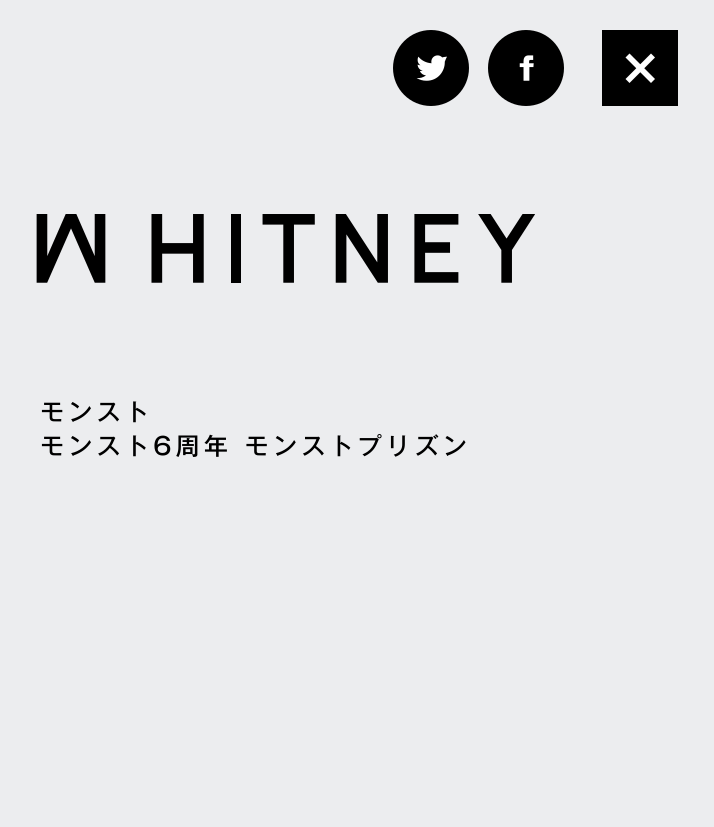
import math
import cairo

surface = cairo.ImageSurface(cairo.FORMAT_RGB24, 714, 827)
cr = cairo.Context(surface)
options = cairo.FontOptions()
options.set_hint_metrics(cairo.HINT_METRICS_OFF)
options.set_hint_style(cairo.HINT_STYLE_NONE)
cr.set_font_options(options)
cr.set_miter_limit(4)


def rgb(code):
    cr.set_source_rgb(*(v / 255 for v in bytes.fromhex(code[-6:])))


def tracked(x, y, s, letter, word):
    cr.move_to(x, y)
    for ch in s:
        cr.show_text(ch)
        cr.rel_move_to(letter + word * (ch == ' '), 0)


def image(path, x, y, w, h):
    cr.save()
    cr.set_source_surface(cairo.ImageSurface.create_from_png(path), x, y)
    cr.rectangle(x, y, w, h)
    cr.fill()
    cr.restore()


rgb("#ecedef")
cr.paint()
rgb("#000000")
cr.arc(431, 68, 38, 0, 2 * math.pi)
cr.fill()
image("img/1.png", 416, 55, 31, 26)
cr.arc(526, 68, 38, 0, 2 * math.pi)
cr.fill()
image("img/2.png", 519, 55, 15, 26)
cr.rectangle(602, 30, 76, 76)
cr.fill()
rgb("#ffffff")
cr.new_path()
cr.move_to(651, 83)
cr.line_to(625.5, 57.5)
cr.line_to(629.5, 53.5)
cr.line_to(655, 79)
cr.close_path()
cr.fill()
cr.new_path()
cr.move_to(655, 57.5)
cr.line_to(629.5, 83)
cr.line_to(625.5, 79)
cr.line_to(651, 53.5)
cr.close_path()
cr.fill()
image("img/3.png", 36, 214, 499, 69)
cr.select_font_face("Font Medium")
cr.set_font_size(24)
rgb("#000000")
tracked(40, 421, "モンスト", 4.3, 0)
tracked(40, 455, "モンスト6周年 モンストプリズン", 4.3, 0)
surface.write_to_png("page.png")
